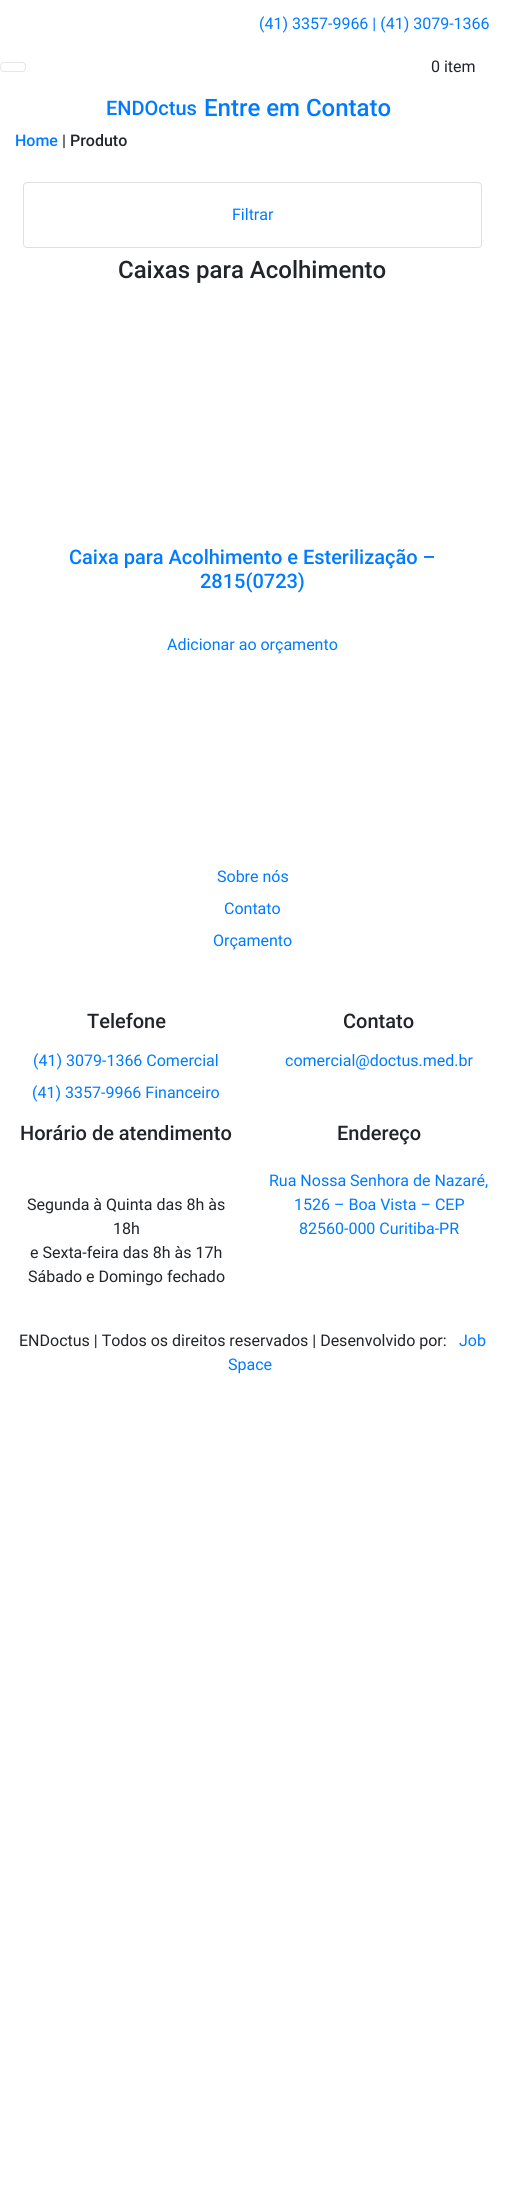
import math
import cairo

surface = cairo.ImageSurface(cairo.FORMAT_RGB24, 505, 2206)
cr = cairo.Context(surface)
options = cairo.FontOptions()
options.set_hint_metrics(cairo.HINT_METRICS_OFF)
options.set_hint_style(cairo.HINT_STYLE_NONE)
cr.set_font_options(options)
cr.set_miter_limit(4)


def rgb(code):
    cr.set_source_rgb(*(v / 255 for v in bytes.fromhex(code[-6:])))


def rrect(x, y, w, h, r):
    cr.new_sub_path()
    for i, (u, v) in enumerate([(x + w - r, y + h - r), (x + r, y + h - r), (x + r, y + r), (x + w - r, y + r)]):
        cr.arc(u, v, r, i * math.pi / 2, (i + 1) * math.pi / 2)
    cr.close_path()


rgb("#ffffff")
cr.paint()
rrect(0.5, 62.5, 25, 9, 3.5)
rgb("#e6e6e6")
cr.set_line_width(1)
cr.stroke()
rrect(23.5, 182.5, 458, 65, 3.5)
rgb("#dfdfdf")
cr.stroke()
cr.select_font_face("Roboto")
cr.set_font_size(16)
rgb("#007bff")
cr.move_to(259, 29)
cr.show_text("(41) 3357-9966 | (41) 3079-1366")
rgb("#212529")
cr.move_to(431, 72)
cr.show_text("0 item")
cr.select_font_face("Roboto Medium")
cr.set_font_size(20)
rgb("#007bff")
cr.move_to(106, 115)
cr.show_text("ENDOctus")
cr.set_font_size(24)
cr.move_to(204, 116)
cr.show_text("Entre em Contato")
cr.set_font_size(16)
cr.move_to(15, 146)
cr.show_text("Home")
rgb("#212529")
cr.move_to(62, 146)
cr.show_text("| Produto")
cr.select_font_face("Roboto")
rgb("#007bff")
cr.move_to(232, 220)
cr.show_text("Filtrar")
cr.select_font_face("Roboto Medium")
cr.set_font_size(24)
rgb("#212529")
cr.move_to(118, 278)
cr.show_text("Caixas para Acolhimento")
cr.set_font_size(20)
rgb("#007bff")
cr.move_to(69, 564)
cr.show_text("Caixa para Acolhimento e Esterilização –")
cr.move_to(200, 588)
cr.show_text("2815(0723)")
cr.select_font_face("Roboto")
cr.set_font_size(16)
for x, y, s in [
    (167, 650, "Adicionar ao orçamento"),
    (217, 882, "Sobre nós"),
    (224, 914, "Contato"),
    (213, 946, "Orçamento"),
]:
    cr.move_to(x, y)
    cr.show_text(s)
cr.select_font_face("Roboto Medium")
cr.set_font_size(20)
rgb("#212529")
cr.move_to(87, 1028)
cr.show_text("Telefone")
cr.select_font_face("Roboto")
cr.set_font_size(16)
rgb("#007bff")
cr.move_to(33, 1066)
cr.show_text("(41) 3079-1366 Comercial")
cr.move_to(32, 1098)
cr.show_text("(41) 3357-9966 Financeiro")
cr.select_font_face("Roboto Medium")
cr.set_font_size(20)
rgb("#212529")
cr.move_to(343, 1028)
cr.show_text("Contato")
cr.select_font_face("Roboto")
cr.set_font_size(16)
rgb("#007bff")
cr.move_to(285, 1066)
cr.show_text("comercial@doctus.med.br")
cr.select_font_face("Roboto Medium")
cr.set_font_size(20)
rgb("#212529")
cr.move_to(20, 1140)
cr.show_text("Horário de atendimento")
cr.select_font_face("Roboto")
cr.set_font_size(16)
for x, y, s in [
    (27, 1210, "Segunda à Quinta das 8h às"),
    (113, 1234, "18h"),
    (30, 1258, "e Sexta-feira das 8h às 17h"),
    (28, 1282, "Sábado e Domingo fechado"),
]:
    cr.move_to(x, y)
    cr.show_text(s)
cr.select_font_face("Roboto Medium")
cr.set_font_size(20)
cr.move_to(337, 1140)
cr.show_text("Endereço")
cr.select_font_face("Roboto")
cr.set_font_size(16)
rgb("#007bff")
for x, y, s in [
    (269, 1186, "Rua Nossa Senhora de Nazaré,"),
    (294, 1210, "1526 – Boa Vista – CEP"),
    (299, 1234, "82560-000 Curitiba-PR"),
]:
    cr.move_to(x, y)
    cr.show_text(s)
rgb("#212529")
cr.move_to(19, 1346)
cr.show_text("ENDoctus | Todos os direitos reservados | Desenvolvido por:")
rgb("#007bff")
cr.move_to(459, 1346)
cr.show_text("Job")
cr.move_to(228, 1370)
cr.show_text("Space")
surface.write_to_png("page.png")
